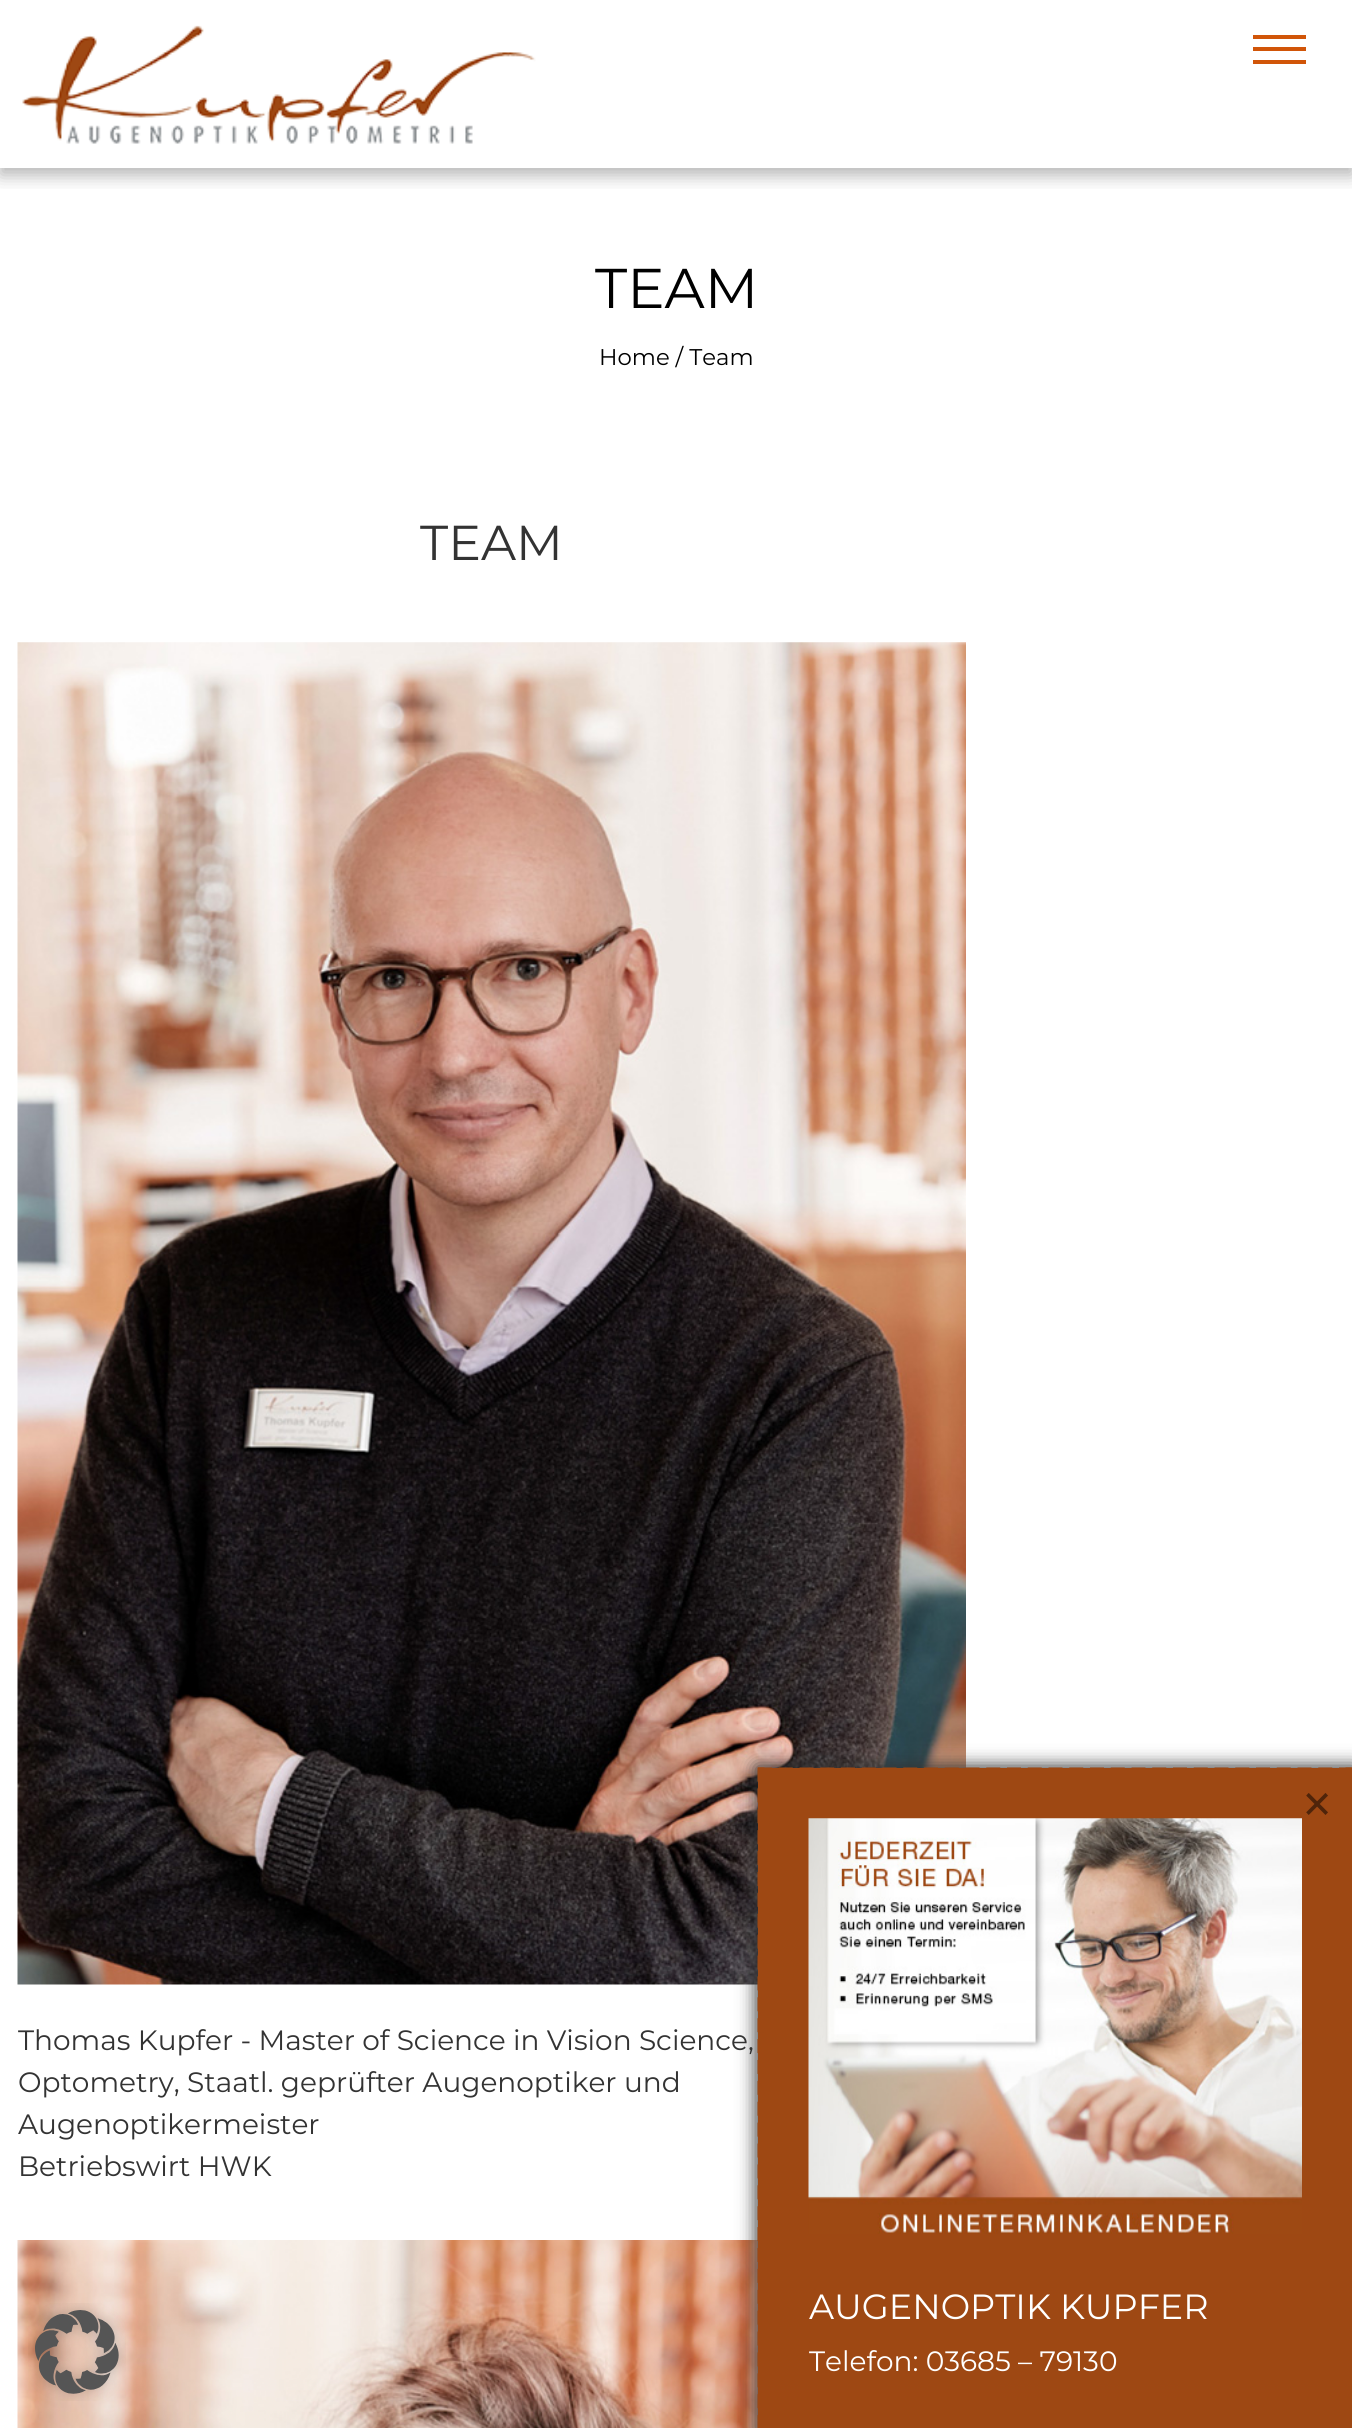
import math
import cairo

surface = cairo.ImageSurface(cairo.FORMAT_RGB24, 1352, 2428)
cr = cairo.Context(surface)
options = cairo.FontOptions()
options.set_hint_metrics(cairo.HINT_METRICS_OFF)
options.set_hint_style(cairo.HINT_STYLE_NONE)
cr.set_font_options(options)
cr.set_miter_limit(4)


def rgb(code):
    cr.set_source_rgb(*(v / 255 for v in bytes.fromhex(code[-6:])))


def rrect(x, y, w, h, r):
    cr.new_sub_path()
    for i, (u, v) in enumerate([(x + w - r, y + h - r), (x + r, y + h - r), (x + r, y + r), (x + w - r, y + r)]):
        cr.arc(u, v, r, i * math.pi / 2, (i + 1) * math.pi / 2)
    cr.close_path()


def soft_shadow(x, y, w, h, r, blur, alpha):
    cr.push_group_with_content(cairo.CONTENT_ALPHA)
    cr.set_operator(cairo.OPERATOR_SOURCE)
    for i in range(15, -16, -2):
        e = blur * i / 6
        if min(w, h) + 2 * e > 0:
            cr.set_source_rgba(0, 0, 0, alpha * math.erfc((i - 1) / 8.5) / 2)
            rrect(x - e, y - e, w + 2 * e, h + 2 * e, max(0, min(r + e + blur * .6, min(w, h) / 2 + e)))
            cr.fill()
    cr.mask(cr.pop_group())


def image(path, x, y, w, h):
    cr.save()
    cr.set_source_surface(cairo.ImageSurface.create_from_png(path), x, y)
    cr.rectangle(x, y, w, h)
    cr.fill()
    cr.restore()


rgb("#ffffff")
cr.paint()
cr.save()
cr.rectangle(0, 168, 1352, 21)
cr.clip()
rgb("#000000")
soft_shadow(0, 7, 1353, 168, 0, 9, 0.3)
cr.restore()
image("img/1.png", 22, 25, 514, 119)
for x, y, w, h, color in [
    (1253, 35, 53, 4, "#d15508"),
    (1253, 47, 53, 4, "#d15508"),
    (1253, 60, 53, 4, "#d15508"),
]:
    rgb(color)
    cr.rectangle(x, y, w, h)
    cr.fill()
image("img/2.png", 17, 642, 949, 1343)
image("img/3.png", 17, 2240, 741, 188)
rgb("#333333")
soft_shadow(756, 1766, 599, 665, 0, 9, 1)
rgb("#9e4813")
cr.rectangle(758, 1768, 594, 660)
cr.fill()
cr.new_path()
cr.move_to(758, 1771)
cr.line_to(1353, 1771)
cr.set_line_width(7)
cr.set_dash([14, 6.75])
cr.stroke()
cr.new_path()
cr.move_to(1349, 1767.5)
cr.line_to(1349, 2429)
cr.set_dash([14, 6.89])
cr.stroke()
cr.new_path()
cr.move_to(761, 1767.5)
cr.line_to(761, 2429)
cr.stroke()
image("img/4.png", 808, 1818, 494, 416)
image("img/5.png", 28, 2303, 98, 98)
cr.select_font_face("Montserrat")
cr.set_font_size(56)
rgb("#000000")
cr.move_to(595, 308)
cr.show_text("TEAM")
cr.set_font_size(22.75)
cr.move_to(599, 365)
cr.show_text("Home / Team")
cr.set_font_size(49)
rgb("#333333")
cr.move_to(420, 560)
cr.show_text("TEAM")
cr.set_font_size(28)
for x, y, s in [
    (18, 2050, "Thomas Kupfer - Master of Science in Vision Science,"),
    (18, 2092, "Optometry, Staatl. geprüfter Augenoptiker und"),
    (18, 2134, "Augenoptikermeister"),
    (18, 2176, "Betriebswirt HWK"),
]:
    cr.move_to(x, y)
    cr.show_text(s)
cr.set_font_size(63)
rgb("#4f240a")
cr.move_to(1299, 1826)
cr.show_text("×")
cr.set_font_size(35)
rgb("#ffffff")
cr.move_to(809, 2319)
cr.show_text("AUGENOPTIK KUPFER")
cr.set_font_size(28)
cr.move_to(809, 2371)
cr.show_text("Telefon: 03685 – 79130")
surface.write_to_png("page.png")
